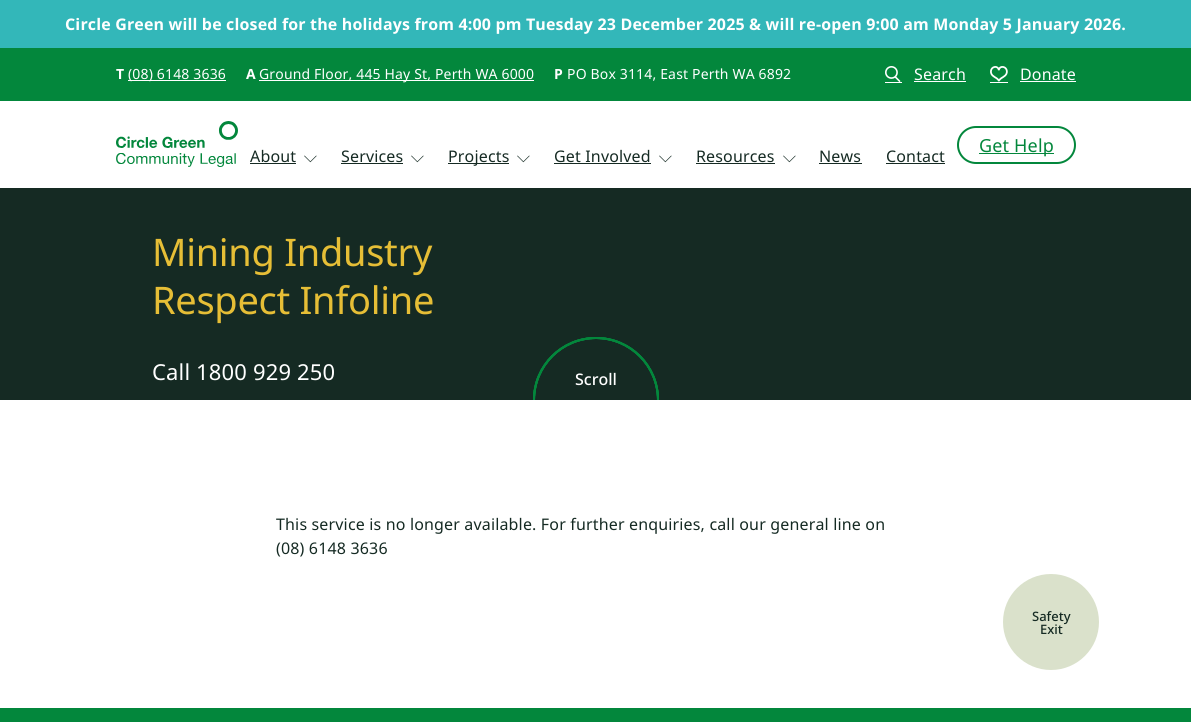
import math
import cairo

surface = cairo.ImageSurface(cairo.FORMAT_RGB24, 1191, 722)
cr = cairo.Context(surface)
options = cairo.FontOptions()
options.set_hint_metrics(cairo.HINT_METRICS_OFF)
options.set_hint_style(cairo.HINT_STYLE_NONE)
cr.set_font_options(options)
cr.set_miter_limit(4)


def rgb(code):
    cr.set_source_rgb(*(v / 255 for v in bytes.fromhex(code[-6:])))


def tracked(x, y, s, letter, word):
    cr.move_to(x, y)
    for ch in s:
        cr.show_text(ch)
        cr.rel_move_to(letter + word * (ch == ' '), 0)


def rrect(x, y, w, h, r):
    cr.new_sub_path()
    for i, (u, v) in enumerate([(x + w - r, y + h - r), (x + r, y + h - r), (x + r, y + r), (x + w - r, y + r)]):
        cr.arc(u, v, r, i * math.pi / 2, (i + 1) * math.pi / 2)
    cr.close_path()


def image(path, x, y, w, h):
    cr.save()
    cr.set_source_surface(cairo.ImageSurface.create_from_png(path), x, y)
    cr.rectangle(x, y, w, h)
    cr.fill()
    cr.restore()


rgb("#ffffff")
cr.paint()
for x, y, w, h, color in [
    (0, 0, 1191, 48, "#33b7b9"),
    (0, 48, 1191, 53, "#03873c"),
    (128, 80, 98, 1, "#ffffff"),
    (259, 80, 275, 1, "#ffffff"),
]:
    rgb(color)
    cr.rectangle(x, y, w, h)
    cr.fill()
image("img/1.png", 885, 66, 16, 16)
cr.rectangle(885, 82, 17, 1)
cr.fill()
cr.rectangle(914, 81, 52, 1)
cr.fill()
image("img/2.png", 990, 66, 18, 16)
cr.rectangle(990, 82, 18, 1)
cr.fill()
cr.rectangle(1020, 81, 56, 1)
cr.fill()
image("img/3.png", 116, 121, 122, 46)
rgb("#152a23")
cr.rectangle(250, 163, 46, 1)
cr.fill()
image("img/4.png", 304, 155, 13, 8)
cr.rectangle(341, 163, 62, 1)
cr.fill()
image("img/4.png", 411, 155, 13, 8)
cr.rectangle(448, 163, 61, 1)
cr.fill()
image("img/4.png", 517, 155, 13, 8)
cr.rectangle(554, 163, 97, 1)
cr.fill()
image("img/4.png", 659, 155, 13, 8)
cr.rectangle(696, 163, 79, 1)
cr.fill()
image("img/4.png", 783, 155, 13, 8)
cr.rectangle(819, 163, 43, 1)
cr.fill()
cr.rectangle(886, 163, 59, 1)
cr.fill()
rrect(958, 127, 117, 36, 18)
rgb("#03873c")
cr.stroke()
cr.rectangle(979, 153, 75, 1)
cr.fill()
rgb("#152a23")
cr.rectangle(0, 188, 1191, 212)
cr.fill()
cr.save()
cr.rectangle(0, 188, 1191, 212)
cr.clip()
cr.arc(596, 400, 62, 0, 2 * math.pi)
rgb("#03873c")
cr.stroke()
cr.arc(596, 400, 62, 0, 2 * math.pi)
cr.stroke()
cr.arc(596, 400, 62, 0, 2 * math.pi)
cr.stroke()
cr.arc(596, 400, 62, 0, 2 * math.pi)
cr.stroke()
cr.restore()
rgb("#dae1cb")
cr.arc(1051, 622, 48, 0, 2 * math.pi)
cr.fill()
rgb("#03873c")
cr.rectangle(0, 708, 1191, 14)
cr.fill()
cr.select_font_face("Noto Sans", cairo.FONT_SLANT_NORMAL, cairo.FONT_WEIGHT_BOLD)
cr.set_font_size(16)
rgb("#ffffff")
tracked(65, 30, "Circle Green will be closed for the holidays from 4:00 pm Tuesday 23 December 2025 & will re-open 9:00 am Monday 5 January 2026.", 0.16, 0)
cr.set_font_size(14)
tracked(116, 79, "T", 0.16, 0)
cr.select_font_face("Noto Sans")
tracked(128, 79, "(08) 6148 3636", 0.16, 0)
cr.select_font_face("Noto Sans", cairo.FONT_SLANT_NORMAL, cairo.FONT_WEIGHT_BOLD)
tracked(246, 79, "A", 0.16, 0)
cr.select_font_face("Noto Sans")
tracked(259, 79, "Ground Floor, 445 Hay St, Perth WA 6000", 0.16, 0)
cr.select_font_face("Noto Sans", cairo.FONT_SLANT_NORMAL, cairo.FONT_WEIGHT_BOLD)
tracked(554, 79, "P", 0.16, 0)
cr.select_font_face("Noto Sans")
tracked(567, 79, "PO Box 3114, East Perth WA 6892", 0.16, 0)
cr.set_font_size(16)
tracked(914, 80, "Search", 0.16, 0)
tracked(1020, 80, "Donate", 0.16, 0)
rgb("#152a23")
for x, y, s in [
    (250, 162, "About"),
    (341, 162, "Services"),
    (448, 162, "Projects"),
    (554, 162, "Get Involved"),
    (696, 162, "Resources"),
    (819, 162, "News"),
    (886, 162, "Contact"),
]:
    tracked(x, y, s, 0.16, 0)
cr.set_font_size(18)
rgb("#03873c")
tracked(979, 152, "Get Help", 0.16, 0)
cr.set_font_size(38)
rgb("#e6be36")
tracked(152, 266, "Mining Industry", -0.3, 0)
tracked(152, 314, "Respect Infoline", -0.3, 0)
cr.set_font_size(22)
rgb("#ffffff")
tracked(152, 380, "Call 1800 929 250", 0.16, 0)
cr.select_font_face("Noto Sans Medium")
cr.set_font_size(16)
cr.move_to(575, 385)
cr.show_text("Scroll")
cr.select_font_face("Noto Sans")
rgb("#152a23")
tracked(276, 530, "This service is no longer available. For further enquiries, call our general line on", 0.16, 0)
tracked(276, 554, "(08) 6148 3636", 0.16, 0)
cr.select_font_face("Noto Sans Medium")
cr.set_font_size(13)
cr.move_to(1032, 621)
cr.show_text("Safety")
cr.move_to(1040, 634)
cr.show_text("Exit")
surface.write_to_png("page.png")
